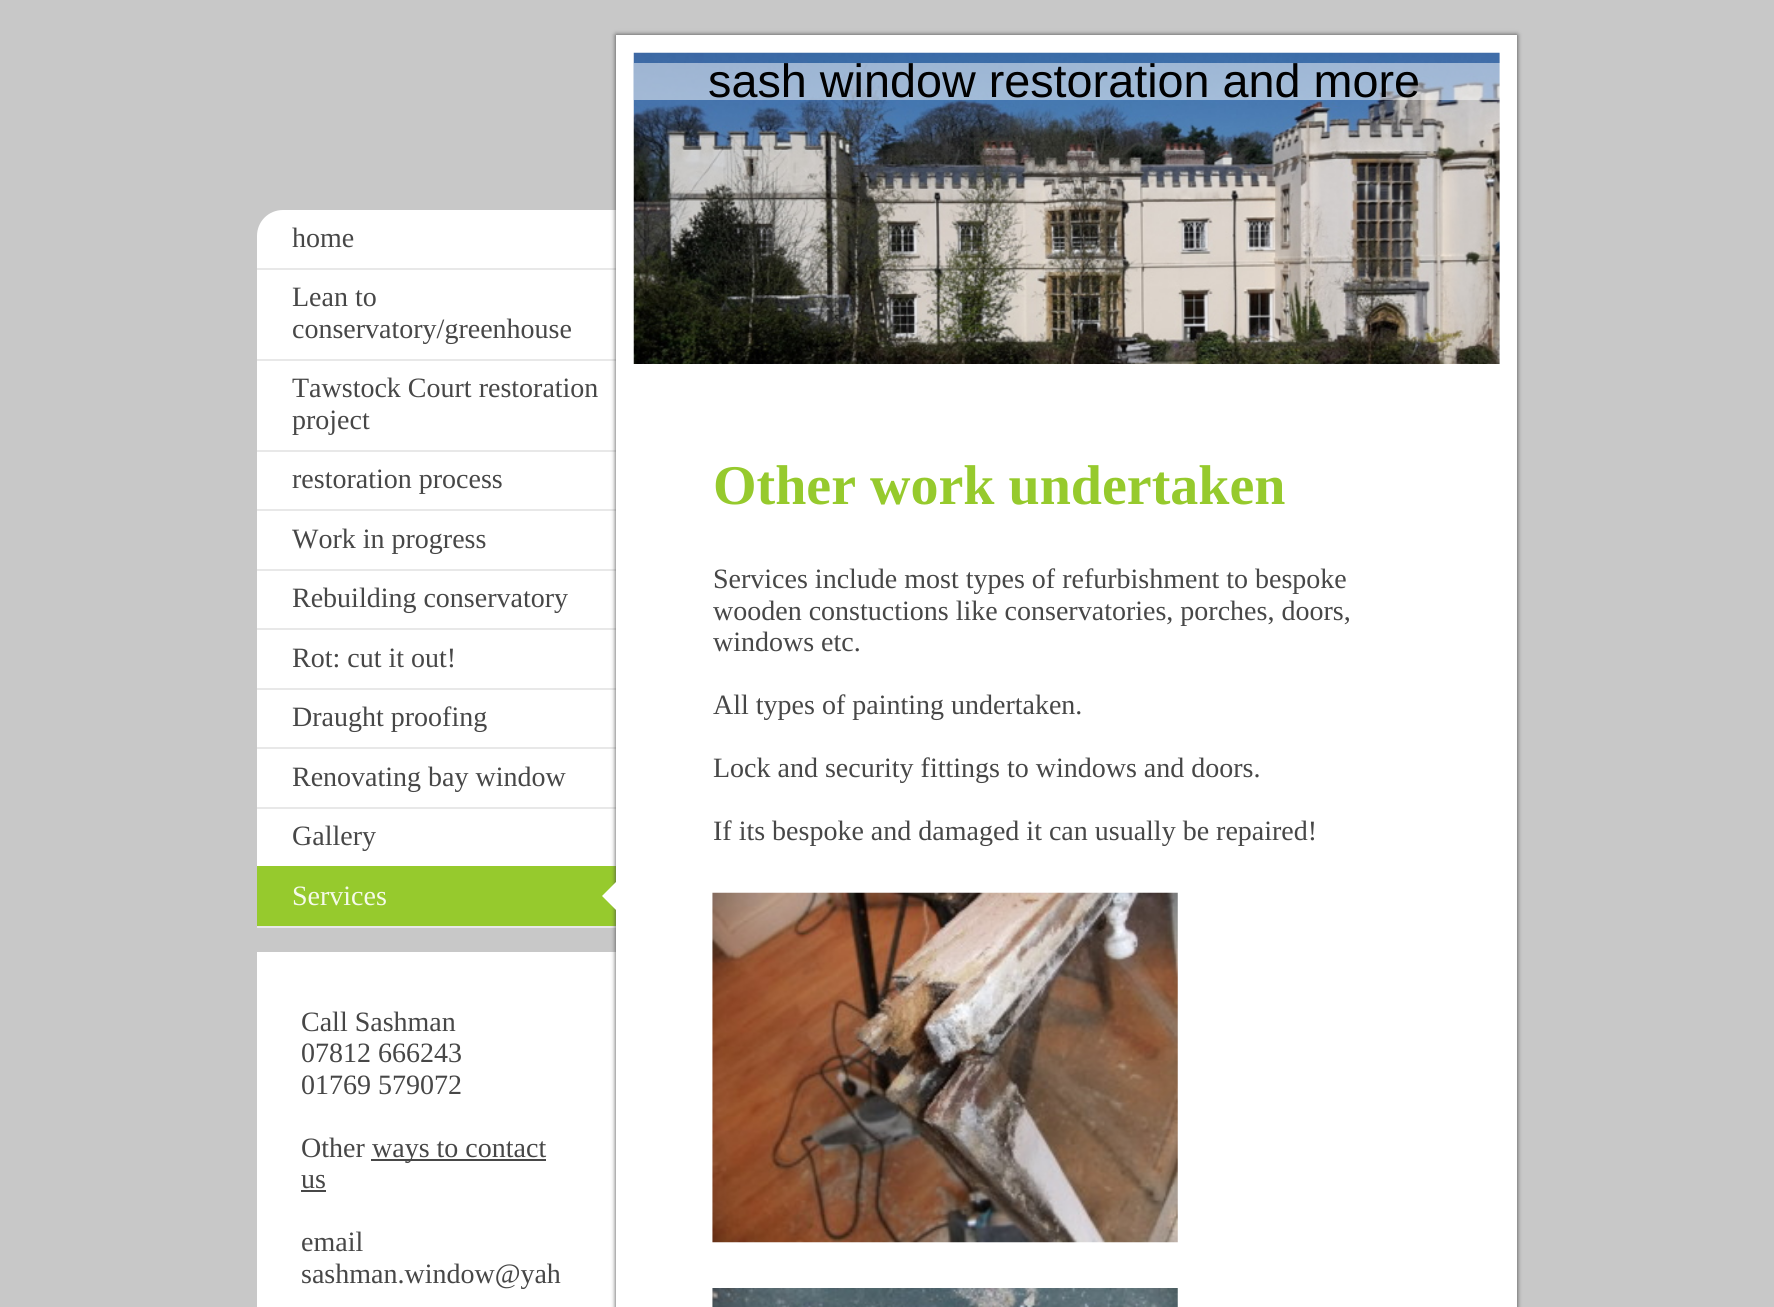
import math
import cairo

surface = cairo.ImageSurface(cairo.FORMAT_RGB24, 1774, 1307)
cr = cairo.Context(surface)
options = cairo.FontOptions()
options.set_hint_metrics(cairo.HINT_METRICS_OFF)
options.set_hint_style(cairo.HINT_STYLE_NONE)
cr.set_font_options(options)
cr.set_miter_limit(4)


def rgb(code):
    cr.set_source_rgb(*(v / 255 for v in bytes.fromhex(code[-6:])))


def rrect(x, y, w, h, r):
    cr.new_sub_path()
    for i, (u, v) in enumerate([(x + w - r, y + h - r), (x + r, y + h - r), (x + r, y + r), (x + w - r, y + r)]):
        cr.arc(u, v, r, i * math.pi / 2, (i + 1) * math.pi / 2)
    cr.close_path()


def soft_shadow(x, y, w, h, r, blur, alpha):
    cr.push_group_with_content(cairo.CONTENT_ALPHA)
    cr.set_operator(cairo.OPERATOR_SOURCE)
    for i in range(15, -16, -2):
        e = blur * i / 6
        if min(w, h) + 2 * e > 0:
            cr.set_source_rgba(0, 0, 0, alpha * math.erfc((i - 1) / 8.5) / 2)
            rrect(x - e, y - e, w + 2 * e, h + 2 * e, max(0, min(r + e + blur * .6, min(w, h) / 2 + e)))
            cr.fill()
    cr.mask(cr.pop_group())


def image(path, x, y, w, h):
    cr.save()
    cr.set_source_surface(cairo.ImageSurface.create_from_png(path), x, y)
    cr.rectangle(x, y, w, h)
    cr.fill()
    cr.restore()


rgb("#c8c8c8")
cr.paint()
rgb("#ffffff")
cr.new_path()
cr.move_to(283, 210)
cr.line_to(616, 210)
cr.line_to(616, 928)
cr.line_to(257, 928)
cr.line_to(257, 236)
cr.curve_to(257, 221.5, 268.5, 210, 283, 210)
cr.close_path()
cr.fill()
for x, y, w, h, color in [
    (257, 268, 359, 2, "#e8e8e8"),
    (257, 359, 359, 2, "#e8e8e8"),
    (257, 450, 359, 2, "#e8e8e8"),
    (257, 509, 359, 2, "#e8e8e8"),
    (257, 569, 359, 2, "#e8e8e8"),
    (257, 628, 359, 2, "#e8e8e8"),
    (257, 688, 359, 2, "#e8e8e8"),
    (257, 747, 359, 2, "#e8e8e8"),
    (257, 807, 359, 2, "#e8e8e8"),
    (257, 866, 359, 60, "#96ca2d"),
    (257, 926, 359, 2, "#e8e8e8"),
    (257, 952, 359, 355, "#ffffff"),
]:
    rgb(color)
    cr.rectangle(x, y, w, h)
    cr.fill()
rgb("#474747")
soft_shadow(616, 35, 901, 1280, 0, 2.5, 1)
rgb("#ffffff")
cr.rectangle(616, 382, 901, 925)
cr.fill()
cr.new_path()
cr.move_to(618, 880)
cr.line_to(618, 912)
cr.line_to(602, 896)
cr.close_path()
cr.fill()
rgb("#474747")
cr.rectangle(371, 1159, 175, 2)
cr.fill()
cr.rectangle(301, 1190, 25, 2)
cr.fill()
cr.rectangle(625, 44, 883, 329)
rgb("#ffffff")
cr.set_line_width(18)
cr.stroke()
rgb("#eeeeee")
cr.rectangle(1499, 53, 1, 311)
cr.fill()
image("img/1.png", 633, 52, 867, 312)
cr.set_source_rgba(1, 1, 1, 0.5)
cr.rectangle(634, 63, 866, 37)
cr.fill()
image("img/2.png", 712, 892, 466, 351)
image("img/3.png", 712, 1288, 466, 19)
cr.select_font_face("Liberation Serif")
cr.set_font_size(28)
rgb("#474747")
for x, y, s in [
    (292, 247, "home"),
    (292, 306, "Lean to"),
    (292, 338, "conservatory/greenhouse"),
    (292, 397, "Tawstock Court restoration"),
    (292, 429, "project"),
    (292, 488, "restoration process"),
    (292, 548, "Work in progress"),
    (292, 607, "Rebuilding conservatory"),
    (292, 667, "Rot: cut it out!"),
    (292, 726, "Draught proofing"),
    (292, 786, "Renovating bay window"),
    (292, 845, "Gallery"),
]:
    cr.move_to(x, y)
    cr.show_text(s)
rgb("#f5faea")
cr.move_to(292, 905)
cr.show_text("Services")
rgb("#474747")
for x, y, s in [
    (301, 1031, "Call Sashman"),
    (301, 1062, "07812 666243"),
    (301, 1094, "01769 579072"),
    (301, 1157, "Other"),
    (372, 1157, "ways to contact"),
    (301, 1188, "us"),
    (301, 1251, "email"),
    (301, 1283, "sashman.window@yah"),
]:
    cr.move_to(x, y)
    cr.show_text(s)
cr.select_font_face("Liberation Sans")
cr.set_font_size(46.75)
rgb("#000000")
cr.move_to(708, 97)
cr.show_text("sash window restoration and more")
cr.select_font_face("Liberation Serif", cairo.FONT_SLANT_NORMAL, cairo.FONT_WEIGHT_BOLD)
cr.set_font_size(56)
rgb("#96ca2d")
cr.move_to(713, 504)
cr.show_text("Other work undertaken")
cr.select_font_face("Liberation Serif")
cr.set_font_size(28)
rgb("#474747")
for x, y, s in [
    (713, 588, "Services include most types of refurbishment to bespoke"),
    (713, 620, "wooden constuctions like conservatories, porches, doors,"),
    (713, 651, "windows etc."),
    (713, 714, "All types of painting undertaken."),
    (713, 777, "Lock and security fittings to windows and doors."),
    (713, 840, "If its bespoke and damaged it can usually be repaired!"),
]:
    cr.move_to(x, y)
    cr.show_text(s)
surface.write_to_png("page.png")
